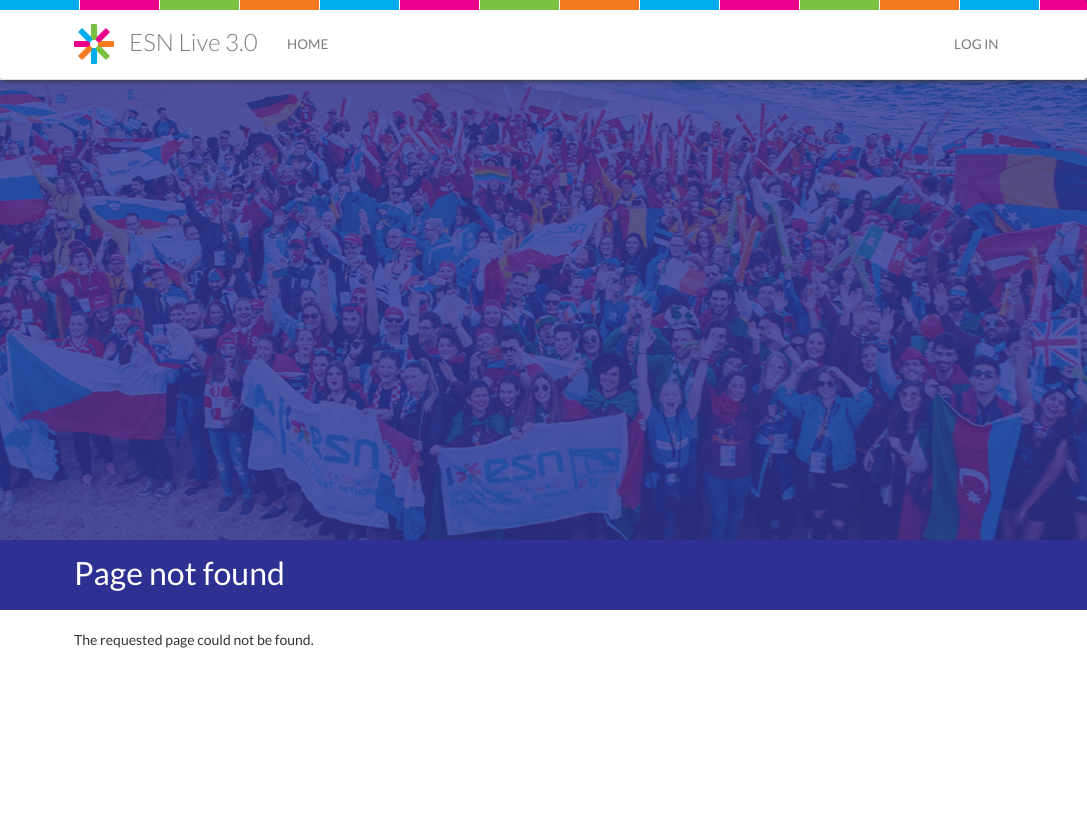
import math
import cairo

surface = cairo.ImageSurface(cairo.FORMAT_RGB24, 1087, 829)
cr = cairo.Context(surface)
options = cairo.FontOptions()
options.set_hint_metrics(cairo.HINT_METRICS_OFF)
options.set_hint_style(cairo.HINT_STYLE_NONE)
cr.set_font_options(options)
cr.set_miter_limit(4)


def rgb(code):
    cr.set_source_rgb(*(v / 255 for v in bytes.fromhex(code[-6:])))


def rrect(x, y, w, h, r):
    cr.new_sub_path()
    for i, (u, v) in enumerate([(x + w - r, y + h - r), (x + r, y + h - r), (x + r, y + r), (x + w - r, y + r)]):
        cr.arc(u, v, r, i * math.pi / 2, (i + 1) * math.pi / 2)
    cr.close_path()


def soft_shadow(x, y, w, h, r, blur, alpha):
    cr.push_group_with_content(cairo.CONTENT_ALPHA)
    cr.set_operator(cairo.OPERATOR_SOURCE)
    for i in range(15, -16, -2):
        e = blur * i / 6
        if min(w, h) + 2 * e > 0:
            cr.set_source_rgba(0, 0, 0, alpha * math.erfc((i - 1) / 8.5) / 2)
            rrect(x - e, y - e, w + 2 * e, h + 2 * e, max(0, min(r + e + blur * .6, min(w, h) / 2 + e)))
            cr.fill()
    cr.mask(cr.pop_group())


def image(path, x, y, w, h):
    cr.save()
    cr.set_source_surface(cairo.ImageSurface.create_from_png(path), x, y)
    cr.rectangle(x, y, w, h)
    cr.fill()
    cr.restore()


rgb("#ffffff")
cr.paint()
image("img/1.png", 0, 0, 1087, 10)
image("img/3.png", 0, 80, 1087, 460)
cr.save()
cr.set_fill_rule(cairo.FILL_RULE_EVEN_ODD)
cr.new_path()
cr.move_to(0, 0)
cr.line_to(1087, 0)
cr.line_to(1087, 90)
cr.line_to(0, 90)
cr.close_path()
cr.move_to(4, 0)
cr.line_to(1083, 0)
cr.curve_to(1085, 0, 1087, 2, 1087, 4)
cr.line_to(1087, 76)
cr.curve_to(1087, 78, 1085, 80, 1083, 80)
cr.line_to(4, 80)
cr.curve_to(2, 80, 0, 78, 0, 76)
cr.line_to(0, 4)
cr.curve_to(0, 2, 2, 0, 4, 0)
cr.close_path()
cr.clip()
rgb("#333333")
soft_shadow(2, 1, 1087, 80, 4, 2.5, 1)
cr.restore()
cr.new_path()
cr.move_to(1085.5, 78.5)
cr.line_to(1083, 79.5)
cr.line_to(4, 79.5)
cr.line_to(1.5, 78.5)
rgb("#dddddd")
cr.set_line_width(1)
cr.stroke()
image("img/2.png", 74, 24, 40, 40)
rgb("#2e3192")
cr.rectangle(0, 540, 1087, 70)
cr.fill()
cr.select_font_face("Lato Light")
cr.set_font_size(24)
rgb("#7d7d7d")
cr.move_to(129, 51)
cr.show_text("ESN Live 3.0")
cr.select_font_face("Lato")
cr.set_font_size(13.5)
cr.move_to(287, 49)
cr.show_text("HOME")
cr.move_to(954, 49)
cr.show_text("LOG IN")
cr.set_font_size(32)
rgb("#ffffff")
cr.move_to(74, 585)
cr.show_text("Page not found")
cr.set_font_size(14)
rgb("#333333")
cr.move_to(74, 645)
cr.show_text("The requested page could not be found.")
surface.write_to_png("page.png")
